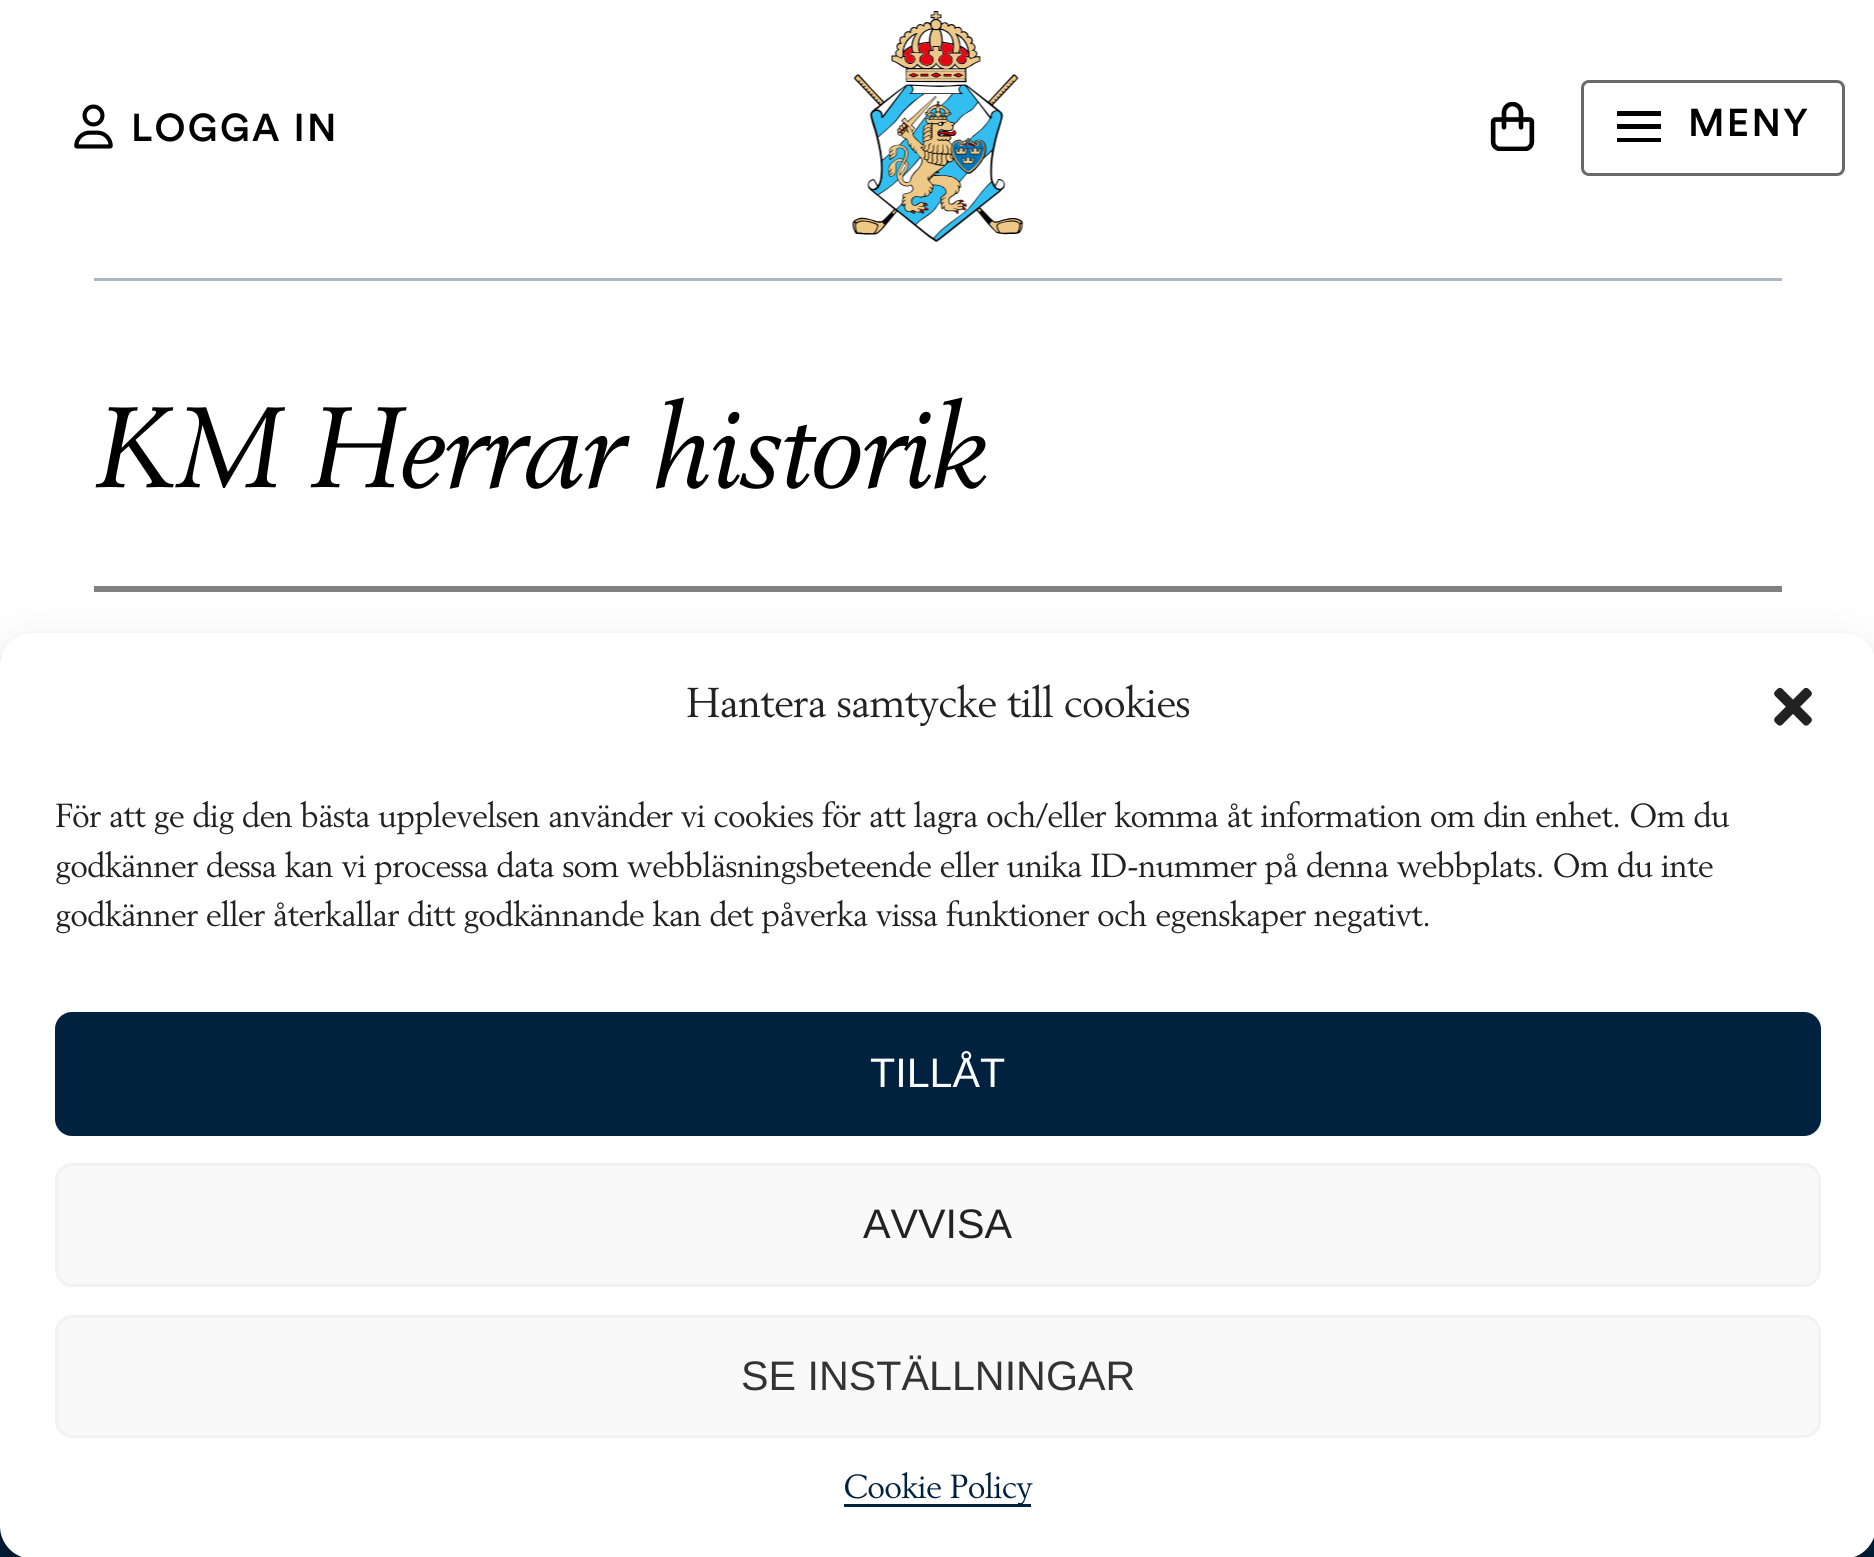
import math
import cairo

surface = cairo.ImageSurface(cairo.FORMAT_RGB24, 1874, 1557)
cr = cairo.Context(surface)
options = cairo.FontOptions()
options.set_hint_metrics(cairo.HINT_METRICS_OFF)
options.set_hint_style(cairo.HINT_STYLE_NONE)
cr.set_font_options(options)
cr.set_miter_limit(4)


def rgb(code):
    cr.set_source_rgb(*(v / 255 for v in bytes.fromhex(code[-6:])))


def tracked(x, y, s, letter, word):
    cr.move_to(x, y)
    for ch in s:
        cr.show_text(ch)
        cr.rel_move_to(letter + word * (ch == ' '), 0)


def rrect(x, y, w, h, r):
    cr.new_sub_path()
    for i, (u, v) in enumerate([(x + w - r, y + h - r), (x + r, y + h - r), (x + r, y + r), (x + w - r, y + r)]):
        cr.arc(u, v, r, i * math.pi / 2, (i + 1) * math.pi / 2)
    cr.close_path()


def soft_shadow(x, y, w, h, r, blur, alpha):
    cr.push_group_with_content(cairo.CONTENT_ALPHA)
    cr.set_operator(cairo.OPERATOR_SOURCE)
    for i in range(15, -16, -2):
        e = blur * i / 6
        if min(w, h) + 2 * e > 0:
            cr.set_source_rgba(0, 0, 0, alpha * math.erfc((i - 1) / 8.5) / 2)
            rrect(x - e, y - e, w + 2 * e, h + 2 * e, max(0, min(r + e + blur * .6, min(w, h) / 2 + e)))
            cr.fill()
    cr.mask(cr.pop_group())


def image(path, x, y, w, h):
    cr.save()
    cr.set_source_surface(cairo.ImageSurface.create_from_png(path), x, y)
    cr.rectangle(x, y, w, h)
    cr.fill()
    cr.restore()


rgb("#ffffff")
cr.paint()
image("img/1.png", 74, 104, 39, 45)
image("img/2.png", 852, 11, 172, 231)
image("img/3.png", 1490, 102, 45, 49)
rrect(1582.5, 81.5, 261, 93, 6.5)
rgb("#696969")
cr.set_line_width(3)
cr.stroke()
for x, y, w, h, color in [
    (1617, 111, 44, 5, "#000000"),
    (1617, 124, 44, 5, "#000000"),
    (1617, 138, 44, 4, "#000000"),
    (94, 278, 1688, 3, "#abb8c3"),
    (94, 586, 1688, 6, "#808080"),
    (0, 1526, 1874, 31, "#00223f"),
]:
    rgb(color)
    cr.rectangle(x, y, w, h)
    cr.fill()
rgb("#000000")
soft_shadow(0, 649, 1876, 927, 33, 8, 0.23)
soft_shadow(0, 660, 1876, 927, 33, 27.5, 0.19)
rgb("#ffffff")
rrect(0, 633, 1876, 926, 33)
cr.fill()
image("img/4.png", 1774, 687, 38, 39)
rgb("#00223f")
rrect(56.5, 1013.5, 1763, 121, 15.5)
cr.fill_preserve()
cr.stroke()
rgb("#f9f9f9")
rrect(56.5, 1164.5, 1763, 121, 15.5)
cr.fill_preserve()
rgb("#f2f2f2")
cr.stroke()
rgb("#f9f9f9")
rrect(56.5, 1316.5, 1763, 120, 15.5)
cr.fill_preserve()
rgb("#f2f2f2")
cr.stroke()
rgb("#00223f")
cr.rectangle(844, 1504, 187, 3)
cr.fill()
cr.select_font_face("Circular Medium")
cr.set_font_size(38.5)
rgb("#000000")
tracked(131, 141, "LOGGA IN", 2.25, 0)
tracked(1688, 136, "MENY", 2.25, 0)
cr.select_font_face("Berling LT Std", cairo.FONT_SLANT_ITALIC)
cr.set_font_size(112.5)
tracked(94, 487, "KM Herrar historik", -1.7, 0)
cr.select_font_face("Berling LT Std")
cr.set_font_size(41.25)
rgb("#222222")
tracked(686, 717, "Hantera samtycke till cookies", -0.74, 0)
cr.set_font_size(33)
for x, y, s in [
    (55, 827, "För att ge dig den bästa upplevelsen använder vi cookies för att lagra och/eller komma åt information om din enhet. Om du"),
    (55, 877, "godkänner dessa kan vi processa data som webbläsningsbeteende eller unika ID-nummer på denna webbplats. Om du inte"),
    (55, 926, "godkänner eller återkallar ditt godkännande kan det påverka vissa funktioner och egenskaper negativt."),
]:
    tracked(x, y, s, -0.74, 0)
cr.select_font_face("Liberation Sans")
cr.set_font_size(41.25)
rgb("#ffffff")
cr.move_to(870, 1087)
cr.show_text("TILLÅT")
rgb("#222222")
cr.move_to(863, 1238)
cr.show_text("AVVISA")
rgb("#333333")
cr.move_to(741, 1390)
cr.show_text("SE INSTÄLLNINGAR")
cr.select_font_face("Berling LT Std")
cr.set_font_size(33)
rgb("#00223f")
tracked(843, 1498, "Cookie Policy", -0.74, 0)
surface.write_to_png("page.png")
